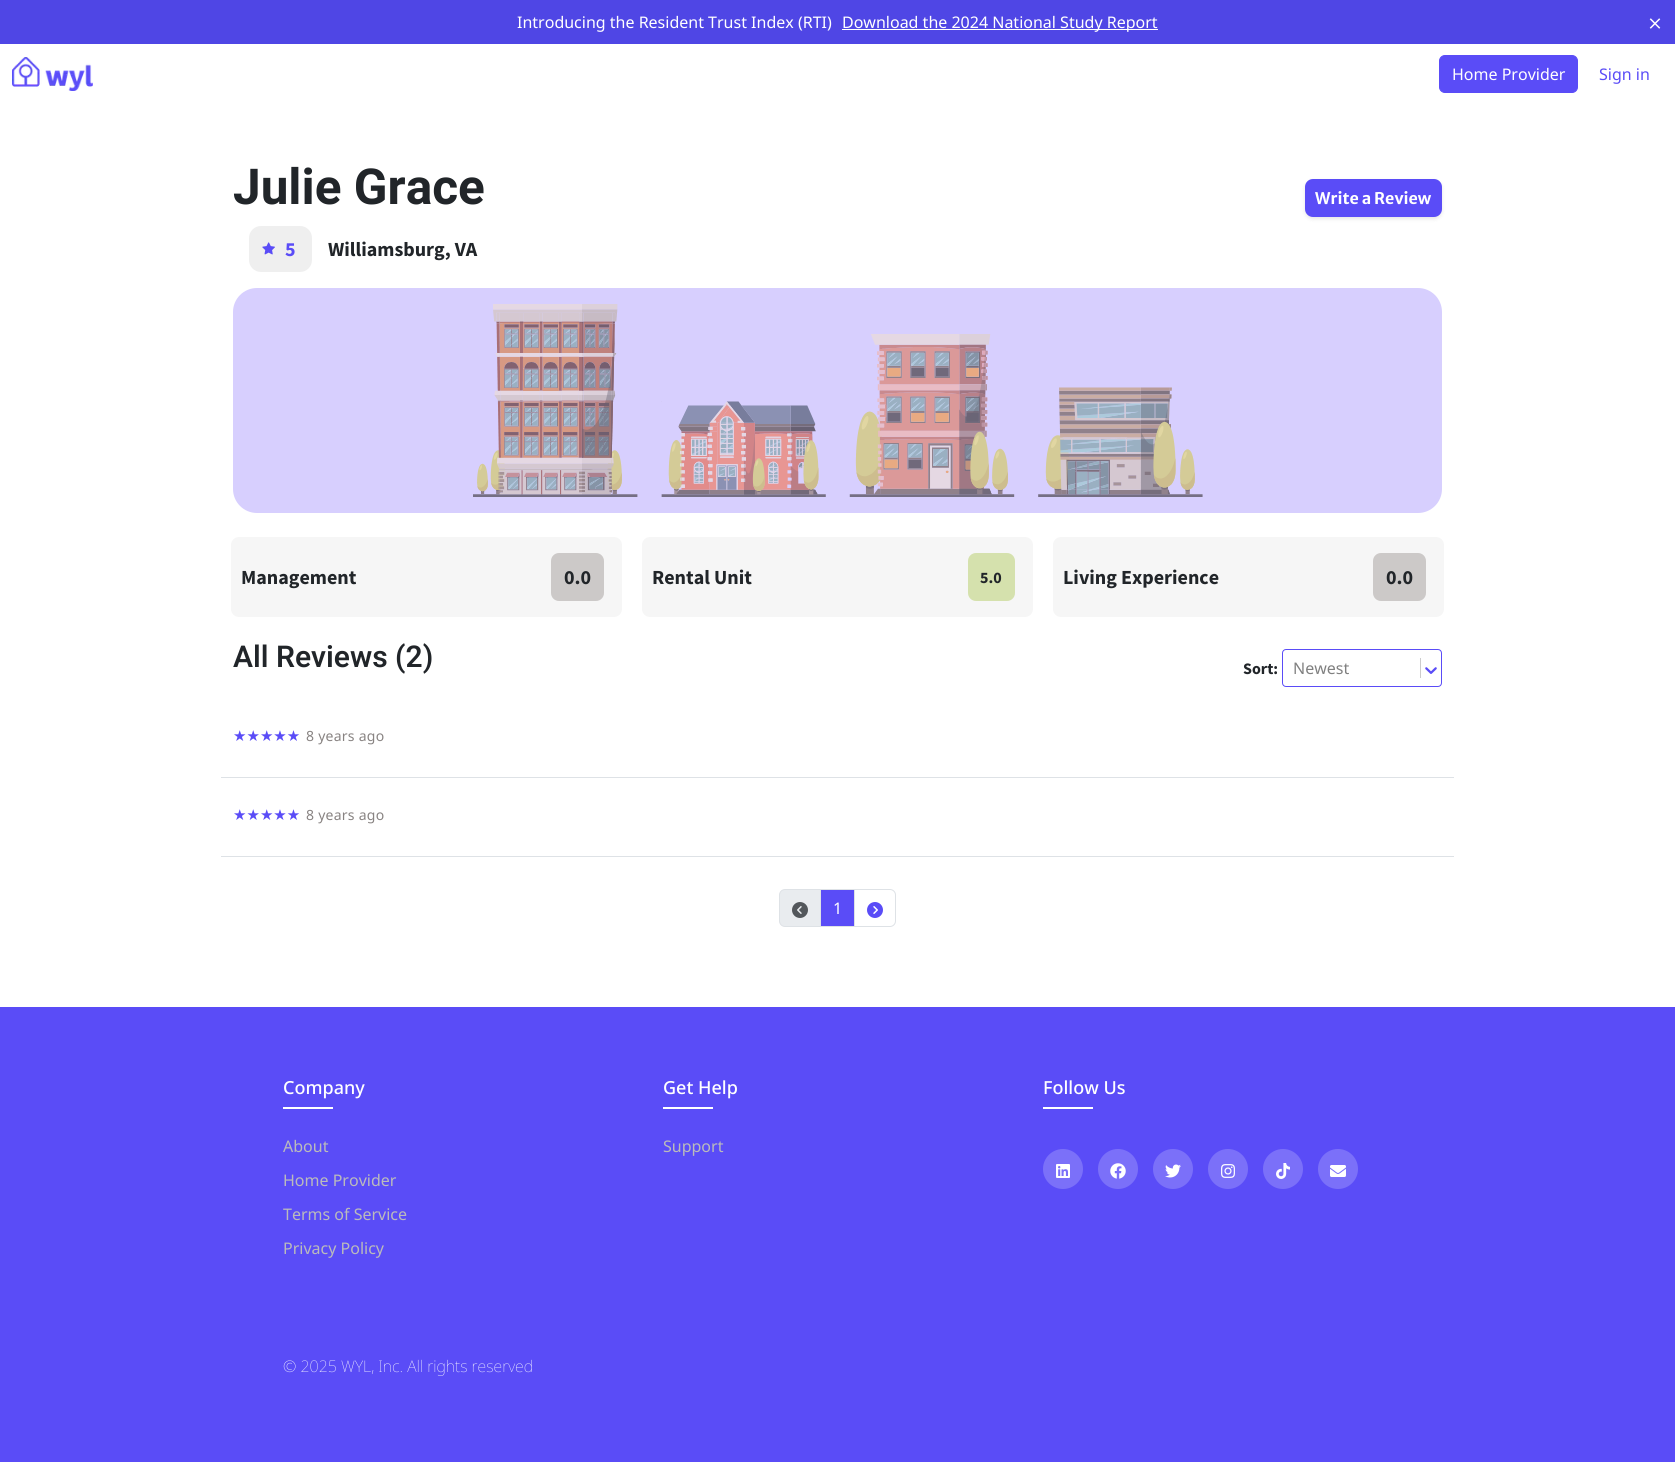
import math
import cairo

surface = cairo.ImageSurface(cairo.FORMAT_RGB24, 1675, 1462)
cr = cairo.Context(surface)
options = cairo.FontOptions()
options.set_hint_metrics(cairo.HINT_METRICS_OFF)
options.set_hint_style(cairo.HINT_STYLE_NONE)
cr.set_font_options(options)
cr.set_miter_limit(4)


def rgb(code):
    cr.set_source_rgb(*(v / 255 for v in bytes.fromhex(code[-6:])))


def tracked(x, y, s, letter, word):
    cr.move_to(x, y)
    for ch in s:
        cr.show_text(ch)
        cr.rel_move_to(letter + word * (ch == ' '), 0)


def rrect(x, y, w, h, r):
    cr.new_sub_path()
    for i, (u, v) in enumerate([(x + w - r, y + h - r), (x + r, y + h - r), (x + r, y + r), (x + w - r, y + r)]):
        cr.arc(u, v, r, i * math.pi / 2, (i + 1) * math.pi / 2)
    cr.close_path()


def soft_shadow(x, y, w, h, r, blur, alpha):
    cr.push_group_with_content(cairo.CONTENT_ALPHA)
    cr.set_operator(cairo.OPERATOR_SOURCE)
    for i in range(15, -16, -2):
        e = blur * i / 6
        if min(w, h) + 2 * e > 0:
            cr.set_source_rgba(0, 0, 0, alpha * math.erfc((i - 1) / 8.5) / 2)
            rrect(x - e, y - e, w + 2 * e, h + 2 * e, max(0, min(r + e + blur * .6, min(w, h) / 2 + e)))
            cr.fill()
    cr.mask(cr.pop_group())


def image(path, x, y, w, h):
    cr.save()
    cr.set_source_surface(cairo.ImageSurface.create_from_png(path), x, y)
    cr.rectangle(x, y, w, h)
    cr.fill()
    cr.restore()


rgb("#ffffff")
cr.paint()
rgb("#4f46e5")
cr.rectangle(0, 0, 1675, 44)
cr.fill()
rgb("#ffffff")
cr.rectangle(842, 29, 316, 1)
cr.fill()
image("img/1.png", 1649, 18, 12, 11)
image("img/2.png", 12, 57, 81, 34)
rgb("#5a4cf7")
rrect(1439.5, 55.5, 138, 37, 5.5)
cr.fill_preserve()
cr.set_line_width(1)
cr.stroke()
rgb("#efefef")
rrect(249, 226, 63, 46, 12)
cr.fill()
image("img/3.png", 262, 242, 13, 13)
rgb("#000000")
soft_shadow(1305, 181, 137, 38, 8, 2, 0.1)
rgb("#5a4cf7")
rrect(1305, 179, 137, 38, 8)
cr.fill()
rgb("#d7cffe")
rrect(233, 288, 1209, 225, 24)
cr.fill()
image("img/4.png", 473, 304, 730, 193)
rgb("#f6f6f6")
rrect(231, 537, 391, 80, 8)
cr.fill()
rgb("#ccc9c8")
rrect(551, 553, 53, 48, 8)
cr.fill()
rgb("#f6f6f6")
rrect(642, 537, 391, 80, 8)
cr.fill()
rgb("#d5e1ad")
rrect(968, 553, 47, 48, 8)
cr.fill()
rgb("#f6f6f6")
rrect(1053, 537, 391, 80, 8)
cr.fill()
rgb("#ccc9c8")
rrect(1373, 553, 53, 48, 8)
cr.fill()
rrect(1282.5, 649.5, 159, 37, 3.5)
rgb("#5a4cf7")
cr.stroke()
rgb("#cccccc")
cr.rectangle(1420, 658, 1, 20)
cr.fill()
image("img/5.png", 1425, 667, 12, 7)
rgb("#dee2e6")
cr.rectangle(221, 777, 1233, 1)
cr.fill()
cr.rectangle(221, 856, 1233, 1)
cr.fill()
rgb("#e9ecef")
cr.new_path()
cr.move_to(785, 889.5)
cr.line_to(820.5, 889.5)
cr.line_to(820.5, 926.5)
cr.line_to(785, 926.5)
cr.curve_to(782, 926.5, 779.5, 924, 779.5, 921)
cr.line_to(779.5, 895)
cr.curve_to(779.5, 892, 782, 889.5, 785, 889.5)
cr.close_path()
cr.fill_preserve()
rgb("#dee2e6")
cr.stroke()
image("img/6.png", 792, 902, 16, 16)
rgb("#5a4cf7")
cr.rectangle(820.5, 889.5, 34, 37)
cr.fill_preserve()
rgb("#dee2e6")
cr.stroke()
rgb("#ffffff")
cr.new_path()
cr.move_to(854.5, 889.5)
cr.line_to(890, 889.5)
cr.curve_to(893, 889.5, 895.5, 892, 895.5, 895)
cr.line_to(895.5, 921)
cr.curve_to(895.5, 924, 893, 926.5, 890, 926.5)
cr.line_to(854.5, 926.5)
cr.close_path()
cr.fill_preserve()
rgb("#dee2e6")
cr.stroke()
image("img/7.png", 867, 902, 16, 16)
for x, y, w, h, color in [
    (0, 1007, 1675, 455, "#5a4cf7"),
    (283, 1107, 50, 2, "#ffffff"),
    (663, 1107, 50, 2, "#ffffff"),
    (1043, 1107, 50, 2, "#ffffff"),
]:
    rgb(color)
    cr.rectangle(x, y, w, h)
    cr.fill()
rgb("#7b70f9")
cr.arc(1063, 1169, 20, 0, 2 * math.pi)
cr.fill()
image("img/8.png", 1056, 1164, 14, 14)
cr.arc(1118, 1169, 20, 0, 2 * math.pi)
cr.fill()
image("img/9.png", 1110, 1163, 16, 16)
cr.arc(1173, 1169, 20, 0, 2 * math.pi)
cr.fill()
image("img/10.png", 1165, 1164, 16, 14)
cr.arc(1228, 1169, 20, 0, 2 * math.pi)
cr.fill()
image("img/11.png", 1221, 1164, 14, 14)
cr.arc(1283, 1169, 20, 0, 2 * math.pi)
cr.fill()
image("img/12.png", 1276, 1163, 14, 16)
cr.arc(1338, 1169, 20, 0, 2 * math.pi)
cr.fill()
image("img/13.png", 1330, 1165, 16, 12)
cr.select_font_face("Noto Sans")
cr.set_font_size(16)
rgb("#ffffff")
for x, y, s in [
    (517, 28, "Introducing the Resident Trust Index (RTI)"),
    (842, 28, "Download the 2024 National Study Report"),
    (1452, 80, "Home Provider"),
]:
    cr.move_to(x, y)
    cr.show_text(s)
rgb("#5a4cf7")
cr.move_to(1599, 80)
cr.show_text("Sign in")
cr.select_font_face("Heebo", cairo.FONT_SLANT_NORMAL, cairo.FONT_WEIGHT_BOLD)
cr.set_font_size(49.5)
rgb("#212529")
cr.move_to(233, 204)
cr.show_text("Julie Grace")
cr.select_font_face("Source Sans Pro", cairo.FONT_SLANT_NORMAL, cairo.FONT_WEIGHT_BOLD)
cr.set_font_size(20)
rgb("#5a4cf7")
cr.move_to(285, 256)
cr.show_text("5")
rgb("#212529")
cr.move_to(328, 256)
cr.show_text("Williamsburg, VA")
cr.select_font_face("Merriweather Sans", cairo.FONT_SLANT_NORMAL, cairo.FONT_WEIGHT_BOLD)
cr.set_font_size(16)
rgb("#ffffff")
cr.move_to(1315, 204)
cr.show_text("Write a Review")
cr.select_font_face("Source Sans Pro", cairo.FONT_SLANT_NORMAL, cairo.FONT_WEIGHT_BOLD)
cr.set_font_size(20)
rgb("#212529")
for x, y, s in [
    (241, 584, "Management"),
    (564, 584, "0.0"),
    (652, 584, "Rental Unit"),
]:
    cr.move_to(x, y)
    cr.show_text(s)
cr.set_font_size(16)
cr.move_to(980, 583)
cr.show_text("5.0")
cr.set_font_size(20)
cr.move_to(1063, 584)
cr.show_text("Living Experience")
cr.move_to(1386, 584)
cr.show_text("0.0")
cr.select_font_face("Heebo SemiBold")
cr.set_font_size(30)
cr.move_to(233, 667)
cr.show_text("All Reviews (2)")
cr.select_font_face("Source Sans Pro", cairo.FONT_SLANT_NORMAL, cairo.FONT_WEIGHT_BOLD)
cr.set_font_size(16)
cr.move_to(1243, 674)
cr.show_text("Sort:")
cr.select_font_face("Noto Sans")
rgb("#808080")
cr.move_to(1293, 674)
cr.show_text("Newest")
cr.select_font_face("DejaVu Sans")
cr.set_font_size(15)
rgb("#5a4cf7")
cr.move_to(233, 741)
cr.show_text("★★★★★")
cr.select_font_face("Noto Sans")
cr.set_font_size(14)
rgb("#888382")
tracked(306, 741, "8 years ago", 0.25, 0)
cr.select_font_face("DejaVu Sans")
cr.set_font_size(15)
rgb("#5a4cf7")
cr.move_to(233, 820)
cr.show_text("★★★★★")
cr.select_font_face("Noto Sans")
cr.set_font_size(14)
rgb("#888382")
tracked(306, 820, "8 years ago", 0.25, 0)
cr.set_font_size(16)
rgb("#ffffff")
cr.move_to(833, 914)
cr.show_text("1")
cr.select_font_face("Noto Sans Medium")
cr.set_font_size(18)
cr.move_to(283, 1094)
cr.show_text("Company")
cr.select_font_face("Noto Sans")
cr.set_font_size(16)
rgb("#bbbbbb")
for x, y, s in [
    (283, 1152, "About"),
    (283, 1186, "Home Provider"),
    (283, 1220, "Terms of Service"),
    (283, 1254, "Privacy Policy"),
]:
    cr.move_to(x, y)
    cr.show_text(s)
cr.select_font_face("Noto Sans Medium")
cr.set_font_size(18)
rgb("#ffffff")
cr.move_to(663, 1094)
cr.show_text("Get Help")
cr.select_font_face("Noto Sans")
cr.set_font_size(16)
rgb("#bbbbbb")
cr.move_to(663, 1152)
cr.show_text("Support")
cr.select_font_face("Noto Sans Medium")
cr.set_font_size(18)
rgb("#ffffff")
cr.move_to(1043, 1094)
cr.show_text("Follow Us")
cr.select_font_face("Noto Sans Thin")
cr.set_font_size(16)
cr.move_to(283, 1372)
cr.show_text("© 2025 WYL, Inc. All rights reserved")
surface.write_to_png("page.png")
